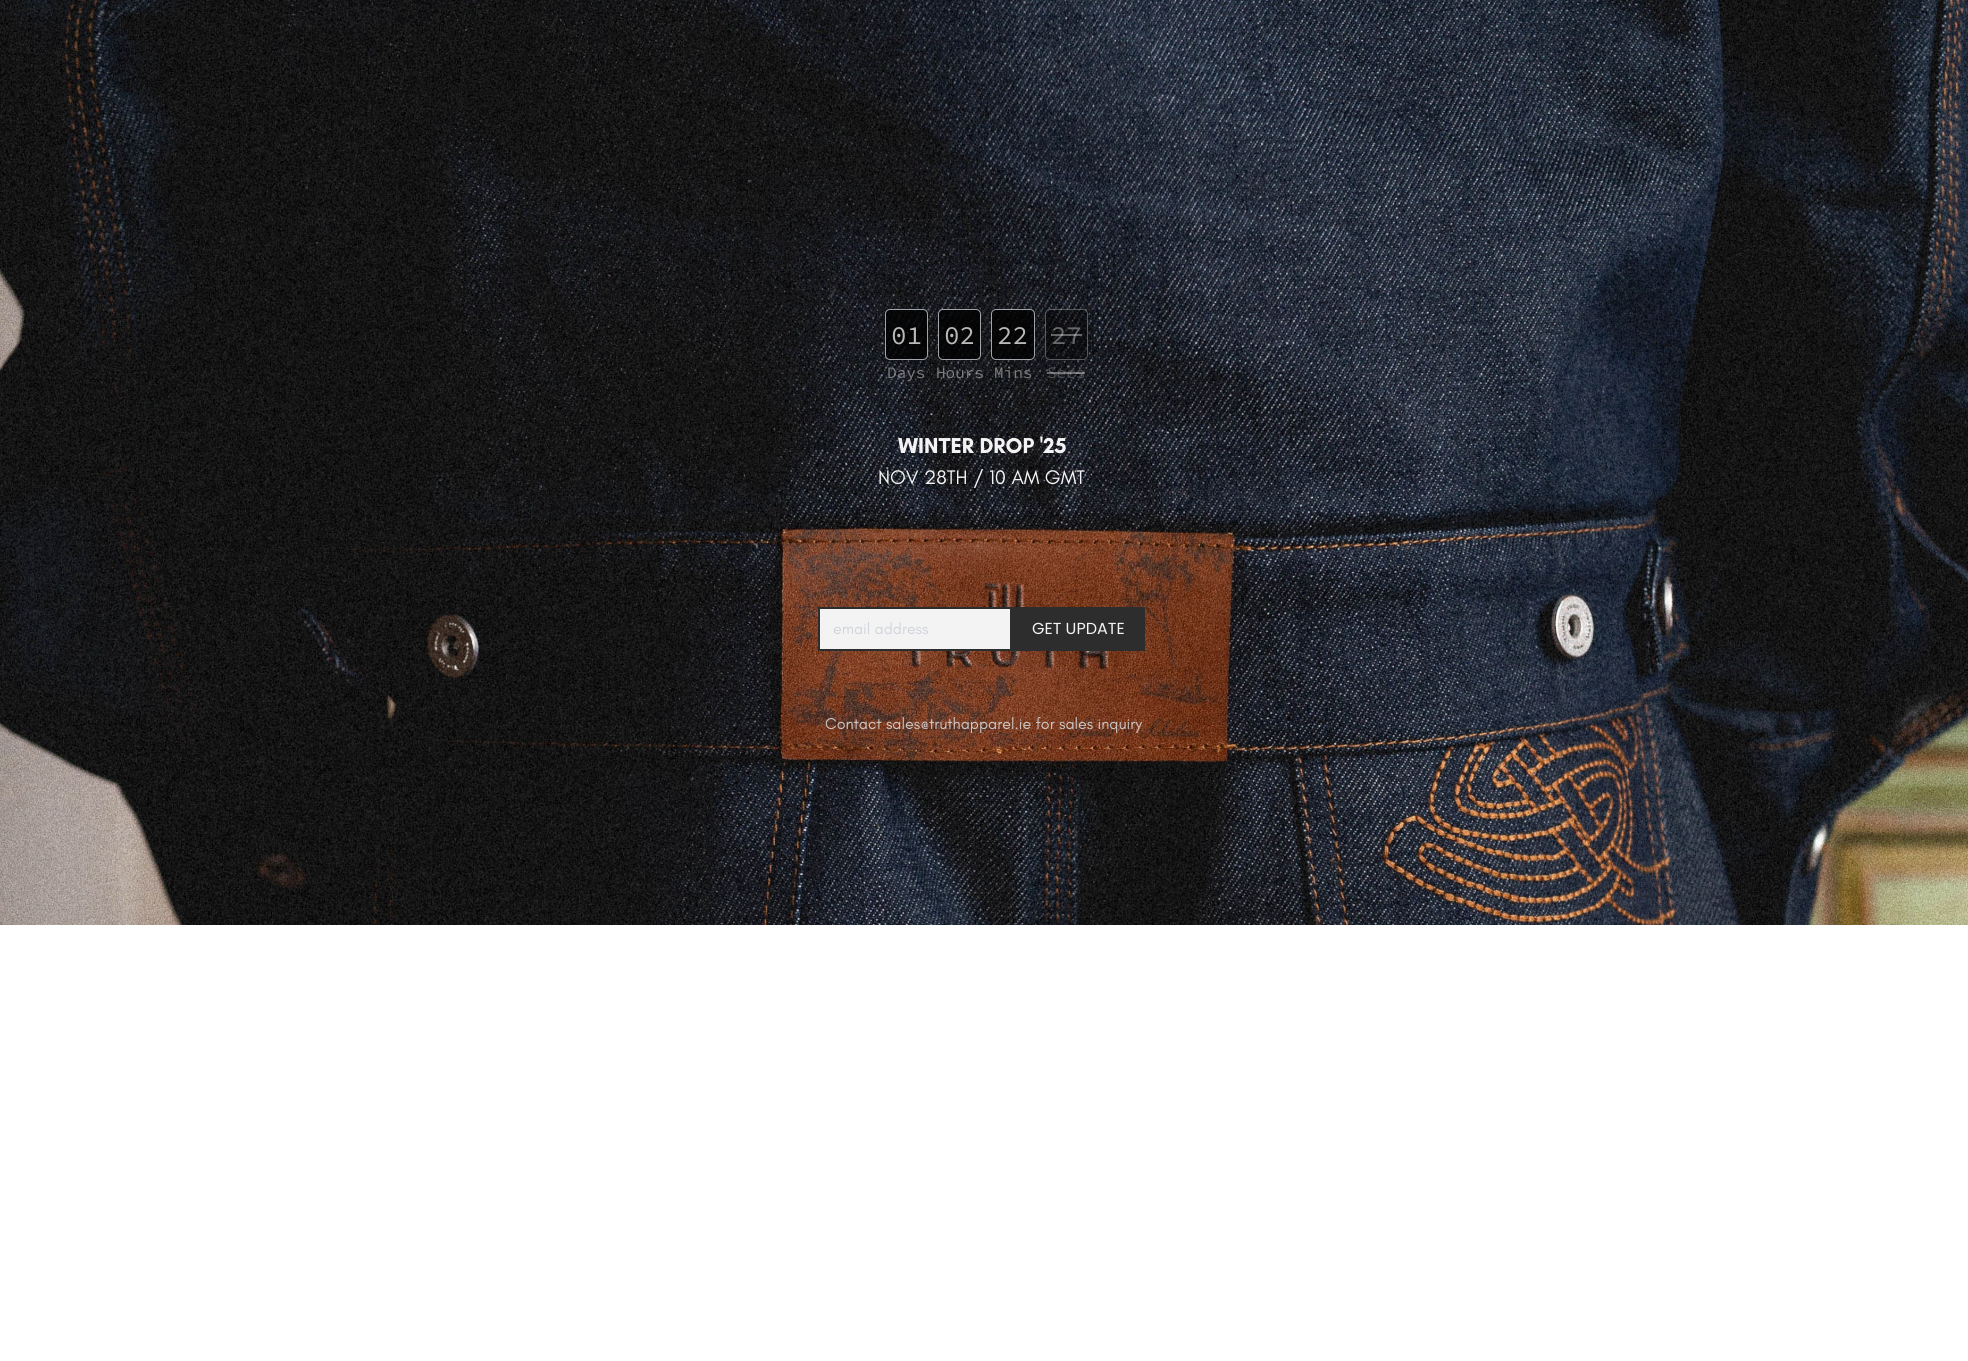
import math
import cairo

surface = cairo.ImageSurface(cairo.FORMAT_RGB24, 1968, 1361)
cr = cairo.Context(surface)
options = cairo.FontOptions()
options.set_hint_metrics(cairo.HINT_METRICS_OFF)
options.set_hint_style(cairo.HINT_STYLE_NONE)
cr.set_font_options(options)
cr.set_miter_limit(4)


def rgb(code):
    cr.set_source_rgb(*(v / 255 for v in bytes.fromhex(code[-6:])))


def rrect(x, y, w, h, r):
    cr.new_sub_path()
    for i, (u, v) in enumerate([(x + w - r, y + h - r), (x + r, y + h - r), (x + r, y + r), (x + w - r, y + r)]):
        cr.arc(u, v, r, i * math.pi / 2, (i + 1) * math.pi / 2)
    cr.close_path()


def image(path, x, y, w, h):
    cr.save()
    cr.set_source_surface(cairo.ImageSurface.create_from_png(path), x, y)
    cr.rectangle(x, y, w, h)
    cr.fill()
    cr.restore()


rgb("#ffffff")
cr.paint()
image("img/1.png", 0, 0, 1968, 925)
cr.set_source_rgba(0, 0, 0, 0.76)
rrect(885, 309, 43, 51, 5)
cr.fill()
rrect(885.5, 309.5, 42, 50, 4.5)
cr.set_source_rgba(0.82, 0.839, 0.871, 0.76)
cr.set_line_width(1)
cr.stroke()
cr.set_source_rgba(0, 0, 0, 0.76)
rrect(938, 309, 43, 51, 5)
cr.fill()
rrect(938.5, 309.5, 42, 50, 4.5)
cr.set_source_rgba(0.82, 0.839, 0.871, 0.76)
cr.stroke()
cr.set_source_rgba(0, 0, 0, 0.76)
rrect(991, 309, 44, 51, 5)
cr.fill()
rrect(991.5, 309.5, 43, 50, 4.5)
cr.set_source_rgba(0.82, 0.839, 0.871, 0.76)
cr.stroke()
cr.set_source_rgba(0, 0, 0, 0.38)
rrect(1045, 309, 43, 51, 5)
cr.fill()
rrect(1045.5, 309.5, 42, 50, 4.5)
cr.set_source_rgba(0.82, 0.839, 0.871, 0.38)
cr.stroke()
rgb("#f3f3f3")
cr.rectangle(819, 608, 192, 42)
cr.fill_preserve()
rgb("#2d2d2d")
cr.set_line_width(2)
cr.stroke()
cr.rectangle(1012, 607, 133, 44)
cr.fill()
cr.select_font_face("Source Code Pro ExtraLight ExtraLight")
cr.set_font_size(26)
rgb("#bababb")
cr.move_to(891, 344)
cr.show_text("01")
cr.set_font_size(16)
rgb("#7d7e7f")
cr.move_to(887, 378)
cr.show_text("Days")
cr.set_font_size(26)
rgb("#bababb")
cr.move_to(944, 344)
cr.show_text("02")
cr.set_font_size(16)
rgb("#7d7e7f")
cr.move_to(936, 378)
cr.show_text("Hours")
cr.set_font_size(26)
rgb("#bababb")
cr.move_to(997, 344)
cr.show_text("22")
cr.set_font_size(16)
rgb("#7d7e7f")
cr.move_to(994, 378)
cr.show_text("Mins")
cr.set_font_size(26)
rgb("#68696a")
cr.move_to(1051, 344)
cr.show_text("27")
cr.set_source_rgba(0.941, 0.941, 0.941, 0.38)
cr.rectangle(1051, 334, 31, 2)
cr.fill()
cr.set_font_size(16)
rgb("#4d4e51")
cr.move_to(1047, 378)
cr.show_text("Secs")
cr.set_source_rgba(0.941, 0.941, 0.941, 0.38)
cr.rectangle(1047, 372, 38, 2)
cr.fill()
cr.select_font_face("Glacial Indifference", cairo.FONT_SLANT_NORMAL, cairo.FONT_WEIGHT_BOLD)
cr.set_font_size(22)
rgb("#f3f3f3")
cr.move_to(898, 453)
cr.show_text("WINTER DROP '25")
cr.select_font_face("Glacial Indifference")
cr.set_font_size(20)
cr.move_to(878, 484)
cr.show_text("NOV 28TH / 10 AM GMT")
cr.set_font_size(16)
rgb("#d1d5db")
cr.move_to(833, 634)
cr.show_text("email address")
cr.select_font_face("Poppins")
rgb("#f3f3f3")
cr.move_to(1032, 634)
cr.show_text("GET UPDATE")
cr.select_font_face("Glacial Indifference")
rgb("#cac6c6")
cr.move_to(825, 729)
cr.show_text("Contact sales@truthapparel.ie for sales inquiry")
surface.write_to_png("page.png")
